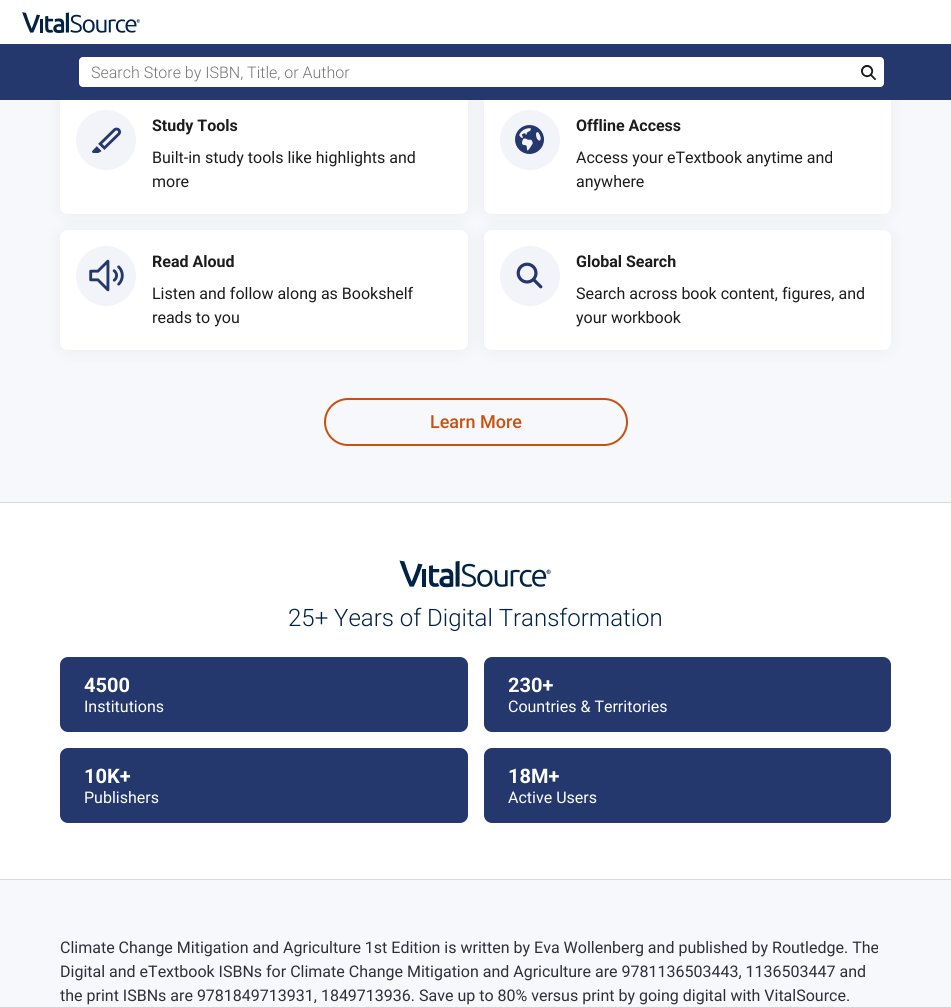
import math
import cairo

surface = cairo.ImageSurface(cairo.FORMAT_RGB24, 951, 1007)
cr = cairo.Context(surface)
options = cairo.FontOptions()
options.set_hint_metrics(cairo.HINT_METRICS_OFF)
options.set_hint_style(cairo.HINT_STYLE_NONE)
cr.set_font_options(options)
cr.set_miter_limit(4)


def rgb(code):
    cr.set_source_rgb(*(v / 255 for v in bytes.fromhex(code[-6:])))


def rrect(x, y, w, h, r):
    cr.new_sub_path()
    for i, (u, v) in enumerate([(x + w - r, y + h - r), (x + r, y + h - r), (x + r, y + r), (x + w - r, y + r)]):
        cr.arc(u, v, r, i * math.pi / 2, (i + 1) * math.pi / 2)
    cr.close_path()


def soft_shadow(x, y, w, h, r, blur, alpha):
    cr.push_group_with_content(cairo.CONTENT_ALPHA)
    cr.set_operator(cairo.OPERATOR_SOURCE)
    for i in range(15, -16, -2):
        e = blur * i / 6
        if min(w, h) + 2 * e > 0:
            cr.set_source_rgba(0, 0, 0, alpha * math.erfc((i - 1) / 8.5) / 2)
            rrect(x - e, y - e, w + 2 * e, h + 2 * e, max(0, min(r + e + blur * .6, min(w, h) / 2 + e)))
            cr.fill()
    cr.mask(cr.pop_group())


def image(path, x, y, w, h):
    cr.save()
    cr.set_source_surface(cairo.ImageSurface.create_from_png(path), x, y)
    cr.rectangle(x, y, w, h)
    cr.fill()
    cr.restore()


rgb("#ffffff")
cr.paint()
image("img/1.png", 22, 12, 118, 21)
rgb("#f6f8fc")
cr.rectangle(0, 100, 951, 402)
cr.fill()
rgb("#000000")
soft_shadow(60, 95, 408, 120, 8, 8, 0.05)
rgb("#ffffff")
rrect(60, 94, 408, 120, 8)
cr.fill()
rgb("#000000")
soft_shadow(60, 231, 408, 120, 8, 8, 0.05)
rgb("#ffffff")
rrect(60, 230, 408, 120, 8)
cr.fill()
rgb("#000000")
soft_shadow(484, 95, 407, 120, 8, 8, 0.05)
rgb("#ffffff")
rrect(484, 94, 407, 120, 8)
cr.fill()
rgb("#24386e")
cr.rectangle(0, 44, 951, 56)
cr.fill()
rgb("#ffffff")
rrect(79, 57, 805, 30, 4)
cr.fill()
image("img/2.png", 861, 65, 15, 15)
rgb("#f2f4f9")
cr.arc(106, 140, 30, 0, 2 * math.pi)
cr.fill()
image("img/3.png", 92, 127, 29, 26)
cr.arc(530, 140, 30, 0, 2 * math.pi)
cr.fill()
image("img/4.png", 515, 125, 29, 29)
cr.arc(106, 276, 30, 0, 2 * math.pi)
cr.fill()
image("img/5.png", 89, 259, 35, 33)
rgb("#000000")
soft_shadow(484, 231, 407, 120, 8, 8, 0.05)
rgb("#ffffff")
rrect(484, 230, 407, 120, 8)
cr.fill()
rgb("#f2f4f9")
cr.arc(530, 276, 30, 0, 2 * math.pi)
cr.fill()
image("img/6.png", 516, 262, 27, 27)
rrect(325, 399, 302, 46, 23)
rgb("#ca500f")
cr.stroke()
rgb("#dadada")
cr.rectangle(0, 502, 951, 1)
cr.fill()
image("img/7.png", 399, 560, 152, 28)
rgb("#24386e")
rrect(60, 657, 408, 75, 8)
cr.fill()
rrect(484, 657, 407, 75, 8)
cr.fill()
rrect(60, 748, 408, 75, 8)
cr.fill()
rrect(484, 748, 407, 75, 8)
cr.fill()
rgb("#f6f8fc")
cr.rectangle(0, 880, 951, 127)
cr.fill()
rgb("#dadada")
cr.rectangle(0, 879, 951, 1)
cr.fill()
cr.select_font_face("Roboto Light")
cr.set_font_size(16)
rgb("#757575")
cr.move_to(91, 78)
cr.show_text("Search Store by ISBN, Title, or Author")
cr.select_font_face("Roboto", cairo.FONT_SLANT_NORMAL, cairo.FONT_WEIGHT_BOLD)
rgb("#1c1c1c")
cr.move_to(152, 131)
cr.show_text("Study Tools")
cr.select_font_face("Roboto")
cr.move_to(152, 163)
cr.show_text("Built-in study tools like highlights and")
cr.move_to(152, 187)
cr.show_text("more")
cr.select_font_face("Roboto", cairo.FONT_SLANT_NORMAL, cairo.FONT_WEIGHT_BOLD)
cr.move_to(576, 131)
cr.show_text("Offline Access")
cr.select_font_face("Roboto")
cr.move_to(576, 163)
cr.show_text("Access your eTextbook anytime and")
cr.move_to(576, 187)
cr.show_text("anywhere")
cr.select_font_face("Roboto", cairo.FONT_SLANT_NORMAL, cairo.FONT_WEIGHT_BOLD)
cr.move_to(152, 267)
cr.show_text("Read Aloud")
cr.select_font_face("Roboto")
cr.move_to(152, 299)
cr.show_text("Listen and follow along as Bookshelf")
cr.move_to(152, 323)
cr.show_text("reads to you")
cr.select_font_face("Roboto", cairo.FONT_SLANT_NORMAL, cairo.FONT_WEIGHT_BOLD)
cr.move_to(576, 267)
cr.show_text("Global Search")
cr.select_font_face("Roboto")
cr.move_to(576, 299)
cr.show_text("Search across book content, figures, and")
cr.move_to(576, 323)
cr.show_text("your workbook")
cr.select_font_face("Roboto Medium")
cr.set_font_size(18)
rgb("#ca500f")
cr.move_to(430, 428)
cr.show_text("Learn More")
cr.select_font_face("Roboto Light")
cr.set_font_size(24)
rgb("#002244")
cr.move_to(288, 626)
cr.show_text("25+ Years of Digital Transformation")
cr.select_font_face("Roboto", cairo.FONT_SLANT_NORMAL, cairo.FONT_WEIGHT_BOLD)
cr.set_font_size(20)
rgb("#ffffff")
cr.move_to(84, 692)
cr.show_text("4500")
cr.select_font_face("Roboto")
cr.set_font_size(16)
cr.move_to(84, 712)
cr.show_text("Institutions")
cr.select_font_face("Roboto", cairo.FONT_SLANT_NORMAL, cairo.FONT_WEIGHT_BOLD)
cr.set_font_size(20)
cr.move_to(508, 692)
cr.show_text("230+")
cr.select_font_face("Roboto")
cr.set_font_size(16)
cr.move_to(508, 712)
cr.show_text("Countries & Territories")
cr.select_font_face("Roboto", cairo.FONT_SLANT_NORMAL, cairo.FONT_WEIGHT_BOLD)
cr.set_font_size(20)
cr.move_to(84, 783)
cr.show_text("10K+")
cr.select_font_face("Roboto")
cr.set_font_size(16)
cr.move_to(84, 803)
cr.show_text("Publishers")
cr.select_font_face("Roboto", cairo.FONT_SLANT_NORMAL, cairo.FONT_WEIGHT_BOLD)
cr.set_font_size(20)
cr.move_to(508, 783)
cr.show_text("18M+")
cr.select_font_face("Roboto")
cr.set_font_size(16)
cr.move_to(508, 803)
cr.show_text("Active Users")
rgb("#2f2f39")
for x, y, s in [
    (60, 953, "Climate Change Mitigation and Agriculture 1st Edition is written by Eva Wollenberg and published by Routledge. The"),
    (60, 977, "Digital and eTextbook ISBNs for Climate Change Mitigation and Agriculture are 9781136503443, 1136503447 and"),
    (60, 1001, "the print ISBNs are 9781849713931, 1849713936. Save up to 80% versus print by going digital with VitalSource."),
]:
    cr.move_to(x, y)
    cr.show_text(s)
surface.write_to_png("page.png")
